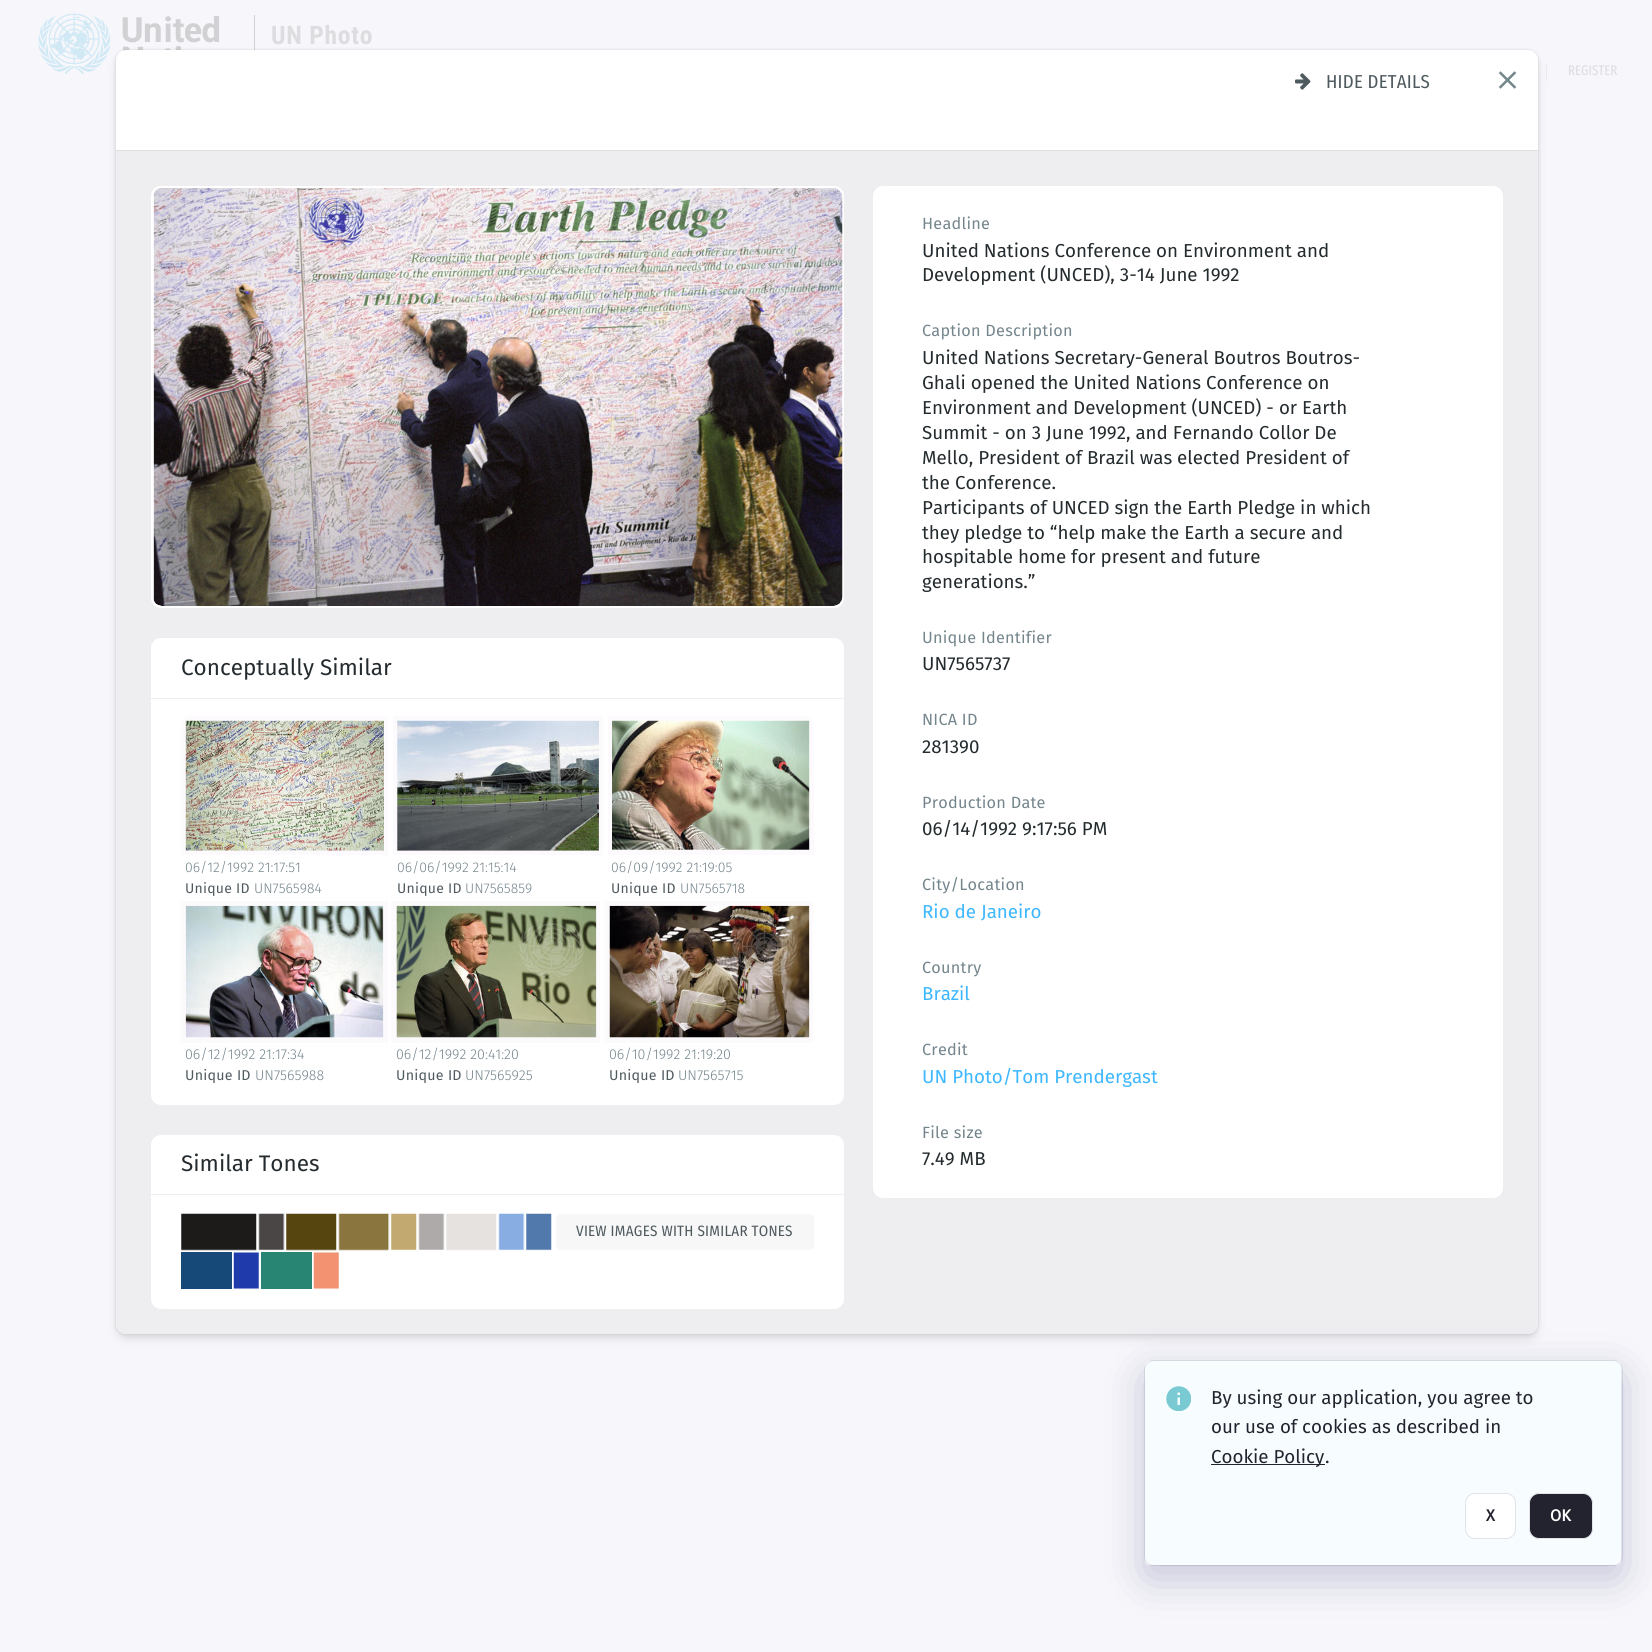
import math
import cairo

surface = cairo.ImageSurface(cairo.FORMAT_RGB24, 1652, 1652)
cr = cairo.Context(surface)
options = cairo.FontOptions()
options.set_hint_metrics(cairo.HINT_METRICS_OFF)
options.set_hint_style(cairo.HINT_STYLE_NONE)
cr.set_font_options(options)
cr.set_miter_limit(4)


def rgb(code):
    cr.set_source_rgb(*(v / 255 for v in bytes.fromhex(code[-6:])))


def tracked(x, y, s, letter, word):
    cr.move_to(x, y)
    for ch in s:
        cr.show_text(ch)
        cr.rel_move_to(letter + word * (ch == ' '), 0)


def rrect(x, y, w, h, r):
    cr.new_sub_path()
    for i, (u, v) in enumerate([(x + w - r, y + h - r), (x + r, y + h - r), (x + r, y + r), (x + w - r, y + r)]):
        cr.arc(u, v, r, i * math.pi / 2, (i + 1) * math.pi / 2)
    cr.close_path()


def soft_shadow(x, y, w, h, r, blur, alpha):
    cr.push_group_with_content(cairo.CONTENT_ALPHA)
    cr.set_operator(cairo.OPERATOR_SOURCE)
    for i in range(15, -16, -2):
        e = blur * i / 6
        if min(w, h) + 2 * e > 0:
            cr.set_source_rgba(0, 0, 0, alpha * math.erfc((i - 1) / 8.5) / 2)
            rrect(x - e, y - e, w + 2 * e, h + 2 * e, max(0, min(r + e + blur * .6, min(w, h) / 2 + e)))
            cr.fill()
    cr.mask(cr.pop_group())


def image(path, x, y, w, h):
    cr.save()
    cr.set_source_surface(cairo.ImageSurface.create_from_png(path), x, y)
    cr.rectangle(x, y, w, h)
    cr.fill()
    cr.restore()


rgb("#f7f7fb")
cr.paint()
image("img/1.png", 38, 13, 182, 62)
rgb("#d1d1d5")
cr.rectangle(254, 15, 1, 35)
cr.fill()
rgb("#ebebee")
cr.rectangle(1546, 63, 1, 18)
cr.fill()
rgb("#000000")
soft_shadow(116, 50, 1422, 1284, 10, 1, 0.06)
soft_shadow(116, 50, 1422, 1284, 10, 2, 0.08)
soft_shadow(116, 56, 1422, 1284, 10, 5.5, 0.06)
soft_shadow(116, 54, 1422, 1284, 10, 3, 0.06)
rgb("#ffffff")
rrect(116, 50, 1422, 1284, 10)
cr.fill()
image("img/2.png", 1295, 73, 16, 17)
rgb("#dfe0e4")
cr.rectangle(116, 150, 1422, 1)
cr.fill()
rgb("#eeeef1")
cr.new_path()
cr.move_to(116, 151)
cr.line_to(1538, 151)
cr.line_to(1538, 1324)
cr.curve_to(1538, 1329.5, 1533.5, 1334, 1528, 1334)
cr.line_to(126, 1334)
cr.curve_to(120.5, 1334, 116, 1329.5, 116, 1324)
cr.close_path()
cr.fill()
rgb("#ffffff")
rrect(151, 186, 693, 422, 10)
cr.fill()
image("img/3.png", 153, 188, 690, 418)
rrect(151, 638, 693, 467, 10)
cr.fill()
rgb("#fcfafc")
cr.new_path()
cr.move_to(191, 716)
cr.line_to(388, 716)
cr.line_to(388, 855)
cr.line_to(181, 855)
cr.line_to(181, 726)
cr.curve_to(181, 720.5, 185.5, 716, 191, 716)
cr.close_path()
cr.fill()
image("img/4.png", 185, 720, 199, 131)
cr.rectangle(393, 716, 210, 139)
cr.fill()
image("img/5.png", 397, 720, 202, 131)
cr.new_path()
cr.move_to(608, 716)
cr.line_to(804, 716)
cr.curve_to(809.5, 716, 814, 720.5, 814, 726)
cr.line_to(814, 855)
cr.line_to(608, 855)
cr.close_path()
cr.fill()
image("img/6.png", 612, 720, 198, 130)
cr.rectangle(181, 901, 207, 142)
cr.fill()
image("img/7.png", 185, 905, 199, 133)
cr.rectangle(391, 901, 209, 142)
cr.fill()
image("img/8.png", 396, 905, 201, 133)
cr.rectangle(605, 901, 208, 142)
cr.fill()
image("img/9.png", 609, 905, 201, 133)
rgb("#eeeef1")
cr.rectangle(151, 698, 693, 1)
cr.fill()
rgb("#ffffff")
rrect(151, 1135, 693, 174, 10)
cr.fill()
image("img/10.png", 181, 1213, 76, 38)
image("img/11.png", 258, 1213, 27, 38)
image("img/12.png", 286, 1213, 51, 38)
image("img/13.png", 338, 1213, 52, 38)
image("img/14.png", 391, 1213, 26, 38)
image("img/15.png", 418, 1213, 27, 37)
image("img/16.png", 446, 1213, 51, 38)
image("img/17.png", 498, 1213, 27, 38)
image("img/18.png", 526, 1213, 26, 38)
rgb("#164977")
cr.rectangle(181, 1252, 51, 37)
cr.fill()
image("img/19.png", 233, 1252, 26, 38)
rgb("#288574")
cr.rectangle(261, 1252, 51, 37)
cr.fill()
image("img/20.png", 313, 1252, 26, 38)
rgb("#f7f7f8")
rrect(556, 1214, 258, 36, 5)
cr.fill()
rgb("#eeeef1")
cr.rectangle(151, 1194, 693, 1)
cr.fill()
rgb("#ffffff")
rrect(873, 186, 630, 1012, 10)
cr.fill()
image("img/21.png", 1498, 71, 19, 18)
rgb("#f7fdfe")
rrect(1144.5, 1360.5, 478, 205, 9.5)
cr.fill_preserve()
rgb("#e2e2e9")
cr.set_line_width(1)
cr.stroke()
cr.save()
cr.set_fill_rule(cairo.FILL_RULE_EVEN_ODD)
cr.new_path()
cr.move_to(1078, 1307)
cr.line_to(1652, 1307)
cr.line_to(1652, 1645)
cr.line_to(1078, 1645)
cr.close_path()
cr.move_to(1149, 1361)
cr.line_to(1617, 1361)
cr.curve_to(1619, 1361, 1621, 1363, 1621, 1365)
cr.line_to(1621, 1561)
cr.curve_to(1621, 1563, 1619, 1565, 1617, 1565)
cr.line_to(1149, 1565)
cr.curve_to(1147, 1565, 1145, 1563, 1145, 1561)
cr.line_to(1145, 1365)
cr.curve_to(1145, 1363, 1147, 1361, 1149, 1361)
cr.close_path()
cr.clip()
rgb("#4d4d87")
soft_shadow(1145, 1374, 476, 204, 4, 22, 0.3)
cr.restore()
image("img/22.png", 1166, 1386, 25, 25)
rgb("#23232f")
cr.rectangle(1211, 1464, 114, 1)
cr.fill()
rgb("#ffffff")
rrect(1465.5, 1493.5, 50, 45, 9.5)
cr.fill_preserve()
rgb("#e2e2e9")
cr.stroke()
rgb("#23232f")
rrect(1529.5, 1493.5, 63, 45, 9.5)
cr.fill_preserve()
rgb("#e2e2e9")
cr.stroke()
cr.select_font_face("Roboto Condensed", cairo.FONT_SLANT_NORMAL, cairo.FONT_WEIGHT_BOLD)
cr.set_font_size(25.5)
rgb("#dddde0")
tracked(271, 44, "UN Photo", 0.75, 0)
cr.select_font_face("Fira Sans Extra Condensed")
cr.set_font_size(14)
cr.move_to(1568, 75)
cr.show_text("REGISTER")
cr.select_font_face("Fira Sans Condensed")
cr.set_font_size(18.75)
rgb("#4f5a5f")
tracked(1326, 88, "HIDE DETAILS", 0.25, 0)
cr.select_font_face("Fira Sans")
cr.set_font_size(22.5)
rgb("#242b2e")
cr.move_to(181, 675)
cr.show_text("Conceptually Similar")
cr.select_font_face("Fira Sans Light")
cr.set_font_size(14)
rgb("#74858c")
cr.move_to(185, 872)
cr.show_text("06/12/1992 21:17:51")
cr.select_font_face("Fira Sans")
rgb("#4f5a5f")
tracked(185, 893, "Unique ID", 0.25, 0)
cr.select_font_face("Fira Sans Light")
rgb("#74858c")
cr.move_to(254, 893)
cr.show_text("UN7565984")
cr.move_to(397, 872)
cr.show_text("06/06/1992 21:15:14")
cr.select_font_face("Fira Sans")
rgb("#4f5a5f")
tracked(397, 893, "Unique ID", 0.25, 0)
cr.select_font_face("Fira Sans Light")
rgb("#74858c")
cr.move_to(465, 893)
cr.show_text("UN7565859")
cr.move_to(611, 872)
cr.show_text("06/09/1992 21:19:05")
cr.select_font_face("Fira Sans")
rgb("#4f5a5f")
tracked(611, 893, "Unique ID", 0.25, 0)
cr.select_font_face("Fira Sans Light")
rgb("#74858c")
cr.move_to(680, 893)
cr.show_text("UN7565718")
cr.set_font_size(14.25)
cr.move_to(185, 1059)
cr.show_text("06/12/1992 21:17:34")
cr.select_font_face("Fira Sans")
rgb("#4f5a5f")
tracked(185, 1080, "Unique ID", 0.25, 0)
cr.select_font_face("Fira Sans Light")
rgb("#74858c")
cr.move_to(255, 1080)
cr.show_text("UN7565988")
cr.move_to(396, 1059)
cr.show_text("06/12/1992 20:41:20")
cr.select_font_face("Fira Sans")
rgb("#4f5a5f")
tracked(396, 1080, "Unique ID", 0.25, 0)
cr.select_font_face("Fira Sans Light")
rgb("#74858c")
cr.move_to(465, 1080)
cr.show_text("UN7565925")
cr.move_to(609, 1059)
cr.show_text("06/10/1992 21:19:20")
cr.select_font_face("Fira Sans")
rgb("#4f5a5f")
tracked(609, 1080, "Unique ID", 0.25, 0)
cr.select_font_face("Fira Sans Light")
rgb("#74858c")
cr.move_to(678, 1080)
cr.show_text("UN7565715")
cr.select_font_face("Fira Sans")
cr.set_font_size(22.5)
rgb("#242b2e")
cr.move_to(181, 1171)
cr.show_text("Similar Tones")
cr.select_font_face("Fira Sans Condensed")
cr.set_font_size(15)
rgb("#4f5a5f")
tracked(576, 1236, "VIEW IMAGES WITH SIMILAR TONES", 0.25, 0)
cr.select_font_face("Fira Sans")
cr.set_font_size(16.25)
rgb("#74858c")
tracked(922, 229, "Headline", 0.25, 0)
cr.set_font_size(18.75)
rgb("#242b2e")
cr.move_to(922, 257)
cr.show_text("United Nations Conference on Environment and")
cr.move_to(922, 281)
cr.show_text("Development (UNCED), 3-14 June 1992")
cr.set_font_size(16.25)
rgb("#74858c")
tracked(922, 336, "Caption Description", 0.25, 0)
cr.set_font_size(18.75)
rgb("#242b2e")
for x, y, s in [
    (922, 364, "United Nations Secretary-General Boutros Boutros-"),
    (922, 389, "Ghali opened the United Nations Conference on"),
    (922, 414, "Environment and Development (UNCED) - or Earth"),
    (922, 439, "Summit - on 3 June 1992, and Fernando Collor De"),
    (922, 464, "Mello, President of Brazil was elected President of"),
    (922, 489, "the Conference."),
    (922, 514, "Participants of UNCED sign the Earth Pledge in which"),
    (922, 539, "they pledge to “help make the Earth a secure and"),
    (922, 563, "hospitable home for present and future"),
    (922, 588, "generations.”"),
]:
    cr.move_to(x, y)
    cr.show_text(s)
cr.set_font_size(16.25)
rgb("#74858c")
tracked(922, 643, "Unique Identifier", 0.25, 0)
cr.set_font_size(18.75)
rgb("#242b2e")
cr.move_to(922, 670)
cr.show_text("UN7565737")
cr.set_font_size(16.25)
rgb("#74858c")
tracked(922, 725, "NICA ID", 0.25, 0)
cr.set_font_size(18.75)
rgb("#242b2e")
cr.move_to(922, 753)
cr.show_text("281390")
cr.set_font_size(16.25)
rgb("#74858c")
tracked(922, 808, "Production Date", 0.25, 0)
cr.set_font_size(18.75)
rgb("#242b2e")
cr.move_to(922, 835)
cr.show_text("06/14/1992 9:17:56 PM")
cr.set_font_size(16.25)
rgb("#74858c")
tracked(922, 890, "City/Location", 0.25, 0)
cr.set_font_size(18.75)
rgb("#3db7ff")
cr.move_to(922, 918)
cr.show_text("Rio de Janeiro")
cr.set_font_size(16.25)
rgb("#74858c")
tracked(922, 973, "Country", 0.25, 0)
cr.set_font_size(18.75)
rgb("#3db7ff")
cr.move_to(922, 1000)
cr.show_text("Brazil")
cr.set_font_size(16.25)
rgb("#74858c")
tracked(922, 1055, "Credit", 0.25, 0)
cr.set_font_size(18.75)
rgb("#3db7ff")
cr.move_to(922, 1083)
cr.show_text("UN Photo/Tom Prendergast")
cr.set_font_size(16.25)
rgb("#74858c")
tracked(922, 1138, "File size", 0.25, 0)
cr.set_font_size(18.75)
rgb("#242b2e")
cr.move_to(922, 1165)
cr.show_text("7.49 MB")
rgb("#23232f")
for x, y, s in [
    (1211, 1404, "By using our application, you agree to"),
    (1211, 1433, "our use of cookies as described in"),
    (1211, 1463, "Cookie Policy"),
    (1325, 1463, "."),
]:
    cr.move_to(x, y)
    cr.show_text(s)
cr.select_font_face("Fira Sans", cairo.FONT_SLANT_NORMAL, cairo.FONT_WEIGHT_BOLD)
cr.set_font_size(16.25)
cr.move_to(1486, 1521)
cr.show_text("X")
rgb("#ffffff")
cr.move_to(1550, 1521)
cr.show_text("OK")
surface.write_to_png("page.png")
